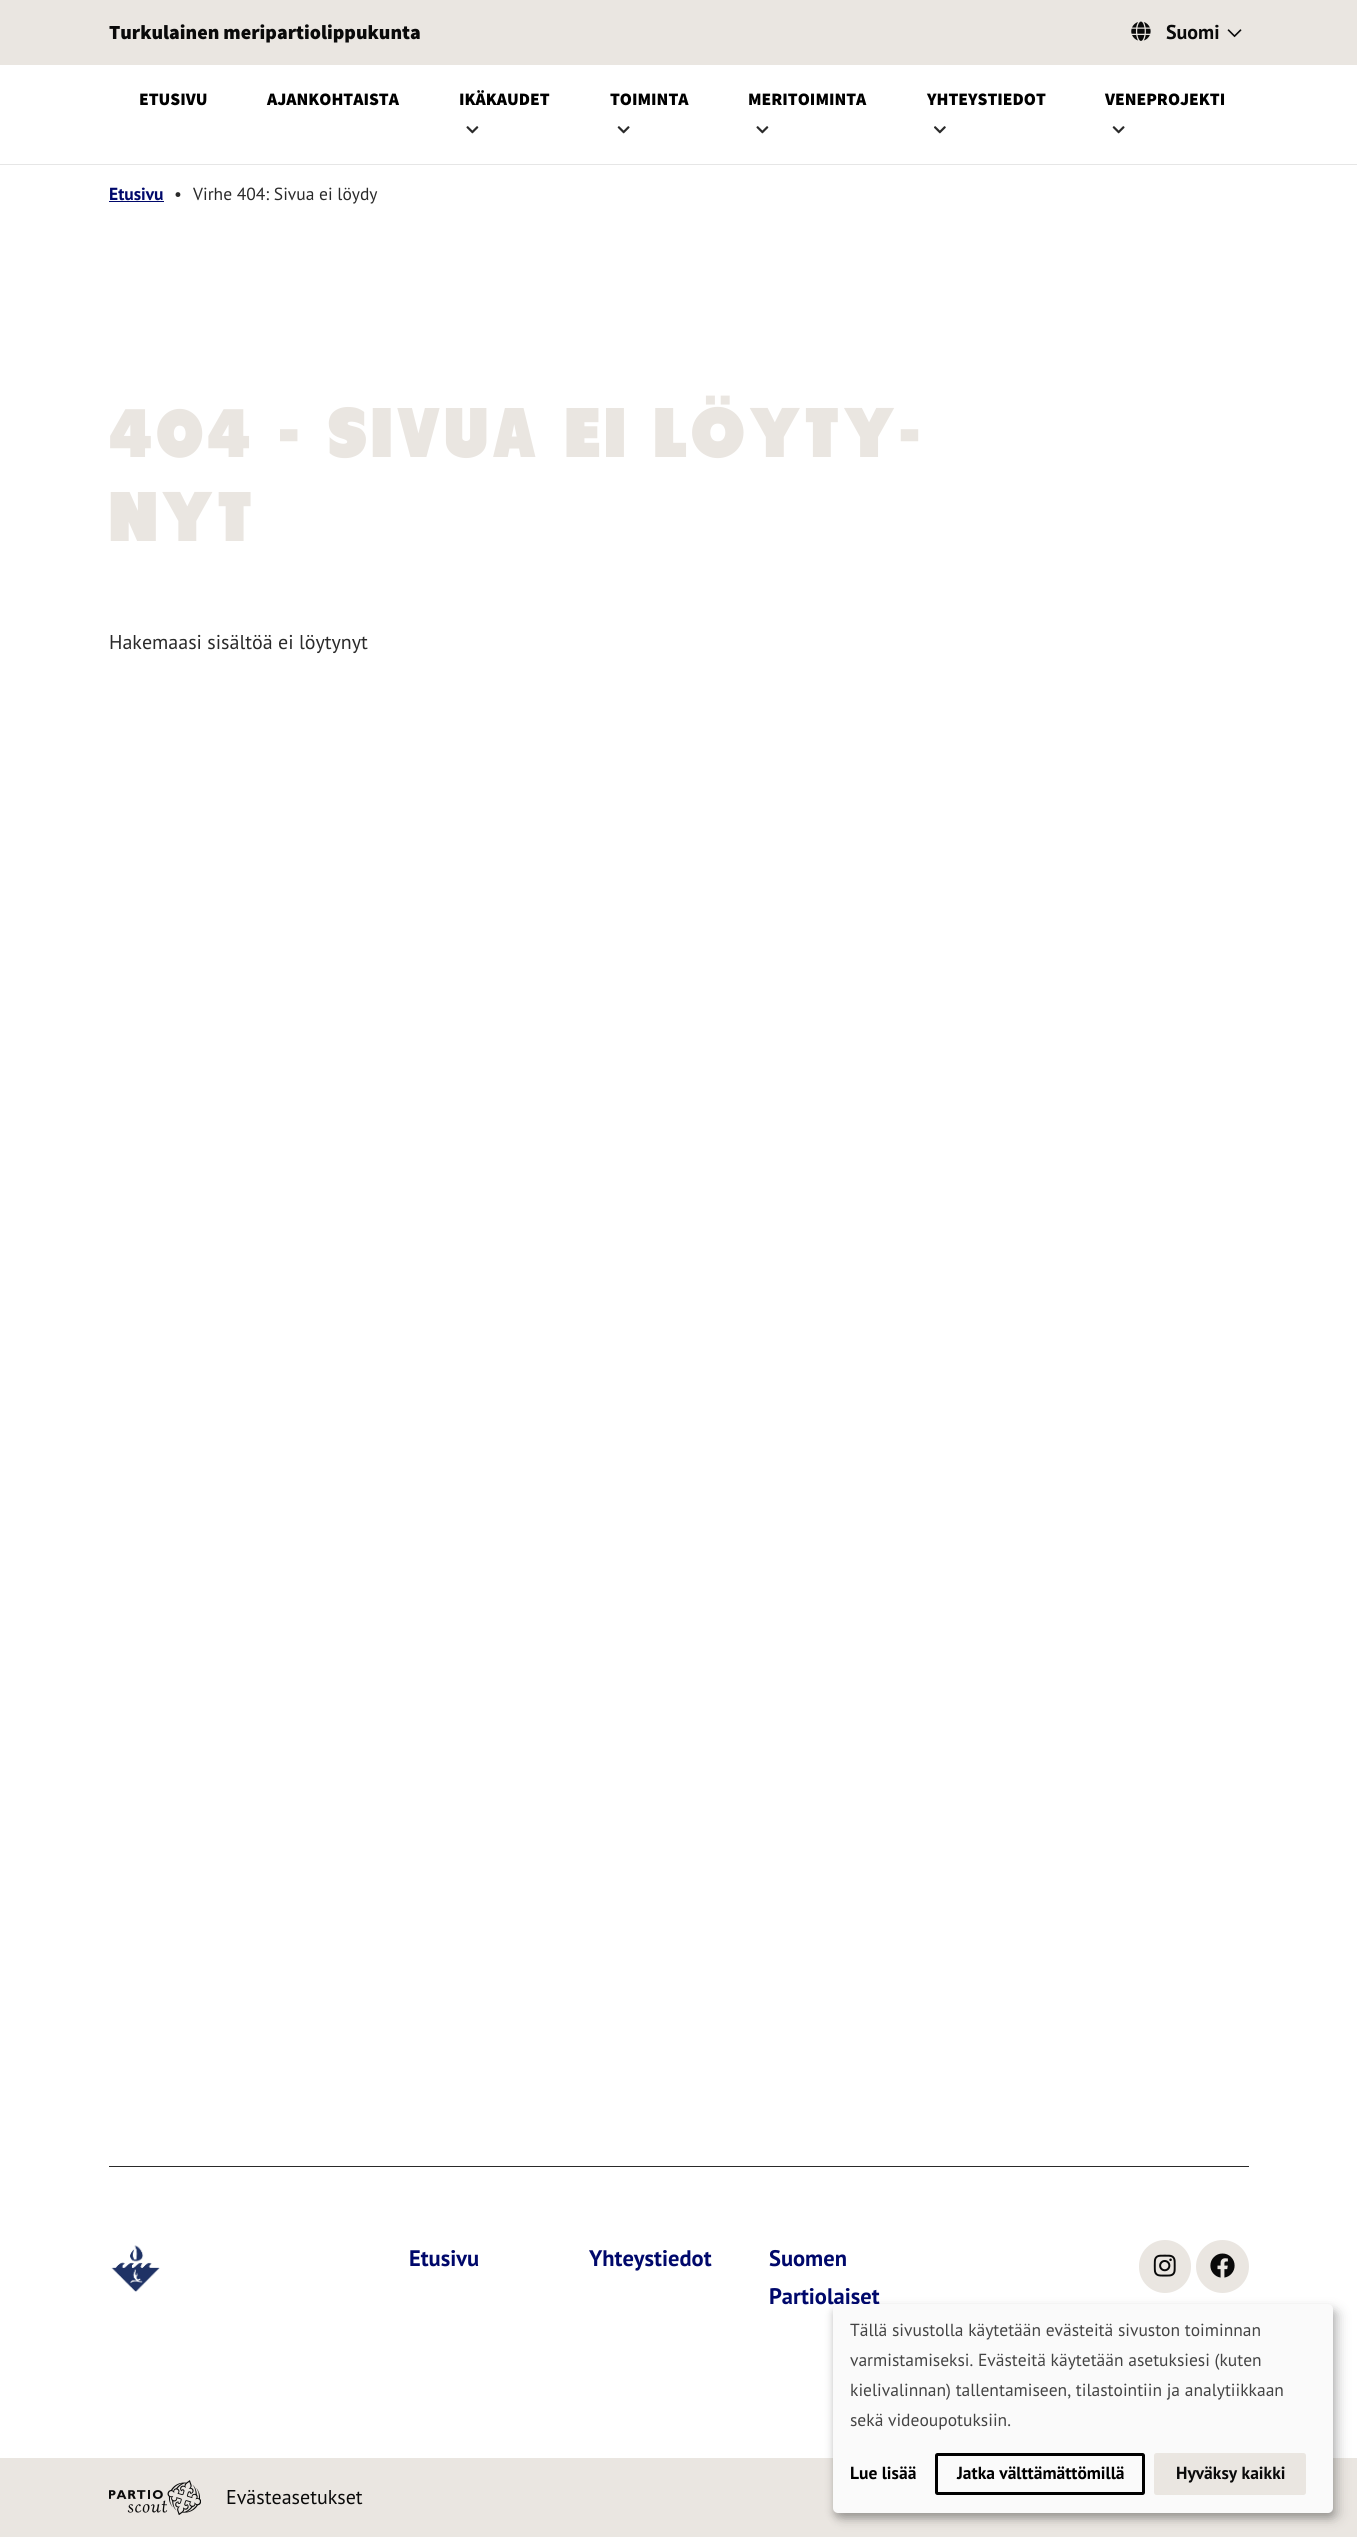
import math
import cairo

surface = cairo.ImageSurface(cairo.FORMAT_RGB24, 1357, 2537)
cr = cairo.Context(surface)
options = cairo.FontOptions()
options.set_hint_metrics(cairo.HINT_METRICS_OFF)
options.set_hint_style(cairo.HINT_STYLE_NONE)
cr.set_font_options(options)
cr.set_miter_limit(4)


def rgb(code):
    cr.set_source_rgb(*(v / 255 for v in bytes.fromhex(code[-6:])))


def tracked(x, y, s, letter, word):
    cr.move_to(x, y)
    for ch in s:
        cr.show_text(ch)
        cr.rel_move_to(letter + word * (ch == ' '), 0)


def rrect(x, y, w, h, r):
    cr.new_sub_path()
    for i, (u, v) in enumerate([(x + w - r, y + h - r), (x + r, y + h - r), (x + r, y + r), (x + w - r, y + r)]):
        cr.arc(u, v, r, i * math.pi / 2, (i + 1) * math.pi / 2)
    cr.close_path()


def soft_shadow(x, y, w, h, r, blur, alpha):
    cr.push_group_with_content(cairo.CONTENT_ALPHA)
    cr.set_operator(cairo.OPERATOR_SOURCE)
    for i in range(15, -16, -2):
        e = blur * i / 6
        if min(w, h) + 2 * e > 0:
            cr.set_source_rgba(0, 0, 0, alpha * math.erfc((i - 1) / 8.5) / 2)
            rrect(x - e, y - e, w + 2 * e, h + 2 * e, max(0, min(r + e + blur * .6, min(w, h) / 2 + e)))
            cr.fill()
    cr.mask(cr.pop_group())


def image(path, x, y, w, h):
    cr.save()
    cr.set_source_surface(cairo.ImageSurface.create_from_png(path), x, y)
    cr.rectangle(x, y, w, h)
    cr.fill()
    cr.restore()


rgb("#ffffff")
cr.paint()
rgb("#eae6e1")
cr.rectangle(0, 0, 1357, 65)
cr.fill()
image("img/1.png", 1131, 21, 20, 20)
image("img/2.png", 1227, 29, 15, 9)
rgb("#e6e6e6")
cr.rectangle(0, 164, 1357, 1)
cr.fill()
image("img/3.png", 466, 126, 13, 8)
image("img/4.png", 617, 126, 13, 8)
image("img/3.png", 756, 126, 13, 8)
image("img/5.png", 934, 126, 12, 8)
image("img/4.png", 1112, 126, 13, 8)
rgb("#00086b")
cr.rectangle(109, 201, 55, 1)
cr.fill()
rgb("#2a2a2a")
cr.rectangle(109, 2166, 1140, 1)
cr.fill()
image("img/6.png", 111, 2245, 49, 47)
rgb("#eae6e1")
rrect(1139, 2240, 52, 53, 26)
cr.fill()
image("img/7.png", 1153, 2254, 23, 23)
cr.arc(1222.5, 2266.5, 26.5, 0, 2 * math.pi)
cr.fill()
image("img/8.png", 1210, 2253, 25, 25)
cr.rectangle(0, 2458, 1357, 79)
cr.fill()
image("img/9.png", 109, 2480, 92, 35)
rgb("#000000")
soft_shadow(839, 2310, 500, 209, 5, 6, 0.19)
soft_shadow(833, 2309, 500, 209, 5, 4, 0.2)
cr.select_font_face("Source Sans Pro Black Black")
cr.set_font_size(20)
rgb("#0a0a0a")
cr.move_to(109, 39)
cr.show_text("Turkulainen meripartiolippukunta")
cr.select_font_face("PT Sans", cairo.FONT_SLANT_NORMAL, cairo.FONT_WEIGHT_BOLD)
cr.move_to(1166, 39)
cr.show_text("Suomi")
cr.select_font_face("Source Sans Pro Black Black")
cr.set_font_size(17.5)
rgb("#000000")
for x, y, s in [
    (139, 105, "ETUSIVU"),
    (267, 105, "AJANKOHTAISTA"),
    (459, 105, "IKÄKAUDET"),
    (610, 105, "TOIMINTA"),
    (748, 105, "MERITOIMINTA"),
    (927, 105, "YHTEYSTIEDOT"),
    (1105, 105, "VENEPROJEKTI"),
]:
    cr.move_to(x, y)
    cr.show_text(s)
cr.select_font_face("PT Sans", cairo.FONT_SLANT_NORMAL, cairo.FONT_WEIGHT_BOLD)
rgb("#00086b")
cr.move_to(109, 200)
cr.show_text("Etusivu")
cr.select_font_face("PT Sans")
rgb("#2a2a2a")
cr.move_to(174, 200)
cr.show_text("•")
cr.move_to(193, 200)
cr.show_text("Virhe 404: Sivua ei löydy")
cr.select_font_face("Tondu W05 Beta")
cr.set_font_size(70)
rgb("#eae6e1")
tracked(109, 457, "404 - SIVUA EI LÖYTY-", 3.5, 0)
tracked(109, 541, "NYT", 3.5, 0)
cr.select_font_face("PT Sans")
cr.set_font_size(20)
rgb("#2a2a2a")
cr.move_to(109, 649)
cr.show_text("Hakemaasi sisältöä ei löytynyt")
cr.select_font_face("PT Sans", cairo.FONT_SLANT_NORMAL, cairo.FONT_WEIGHT_BOLD)
cr.set_font_size(22.5)
rgb("#00086b")
for x, y, s in [
    (409, 2266, "Etusivu"),
    (589, 2266, "Yhteystiedot"),
    (769, 2266, "Suomen"),
    (769, 2304, "Partiolaiset"),
]:
    cr.move_to(x, y)
    cr.show_text(s)
cr.select_font_face("PT Sans")
cr.set_font_size(20)
rgb("#0a0a0a")
cr.move_to(226, 2504)
cr.show_text("Evästeasetukset")
rgb("#fafafa")
rrect(833, 2304, 500, 209, 5)
cr.fill()
cr.set_font_size(17.5)
rgb("#444444")
for x, y, s in [
    (850, 2336, "Tällä sivustolla käytetään evästeitä sivuston toiminnan"),
    (850, 2366, "varmistamiseksi. Evästeitä käytetään asetuksiesi (kuten"),
    (850, 2396, "kielivalinnan) tallentamiseen, tilastointiin ja analytiikkaan"),
    (850, 2426, "sekä videoupotuksiin."),
]:
    cr.move_to(x, y)
    cr.show_text(s)
cr.select_font_face("PT Sans", cairo.FONT_SLANT_NORMAL, cairo.FONT_WEIGHT_BOLD)
rgb("#000000")
cr.move_to(850, 2479)
cr.show_text("Lue lisää")
rrect(936.5, 2454.5, 207, 39, 1)
cr.set_line_width(3)
cr.stroke()
cr.move_to(957, 2479)
cr.show_text("Jatka välttämättömillä")
rgb("#eae6e1")
rrect(1155.5, 2454.5, 149, 39, 1)
cr.fill_preserve()
cr.stroke()
rgb("#0a0a0a")
cr.move_to(1176, 2479)
cr.show_text("Hyväksy kaikki")
surface.write_to_png("page.png")
